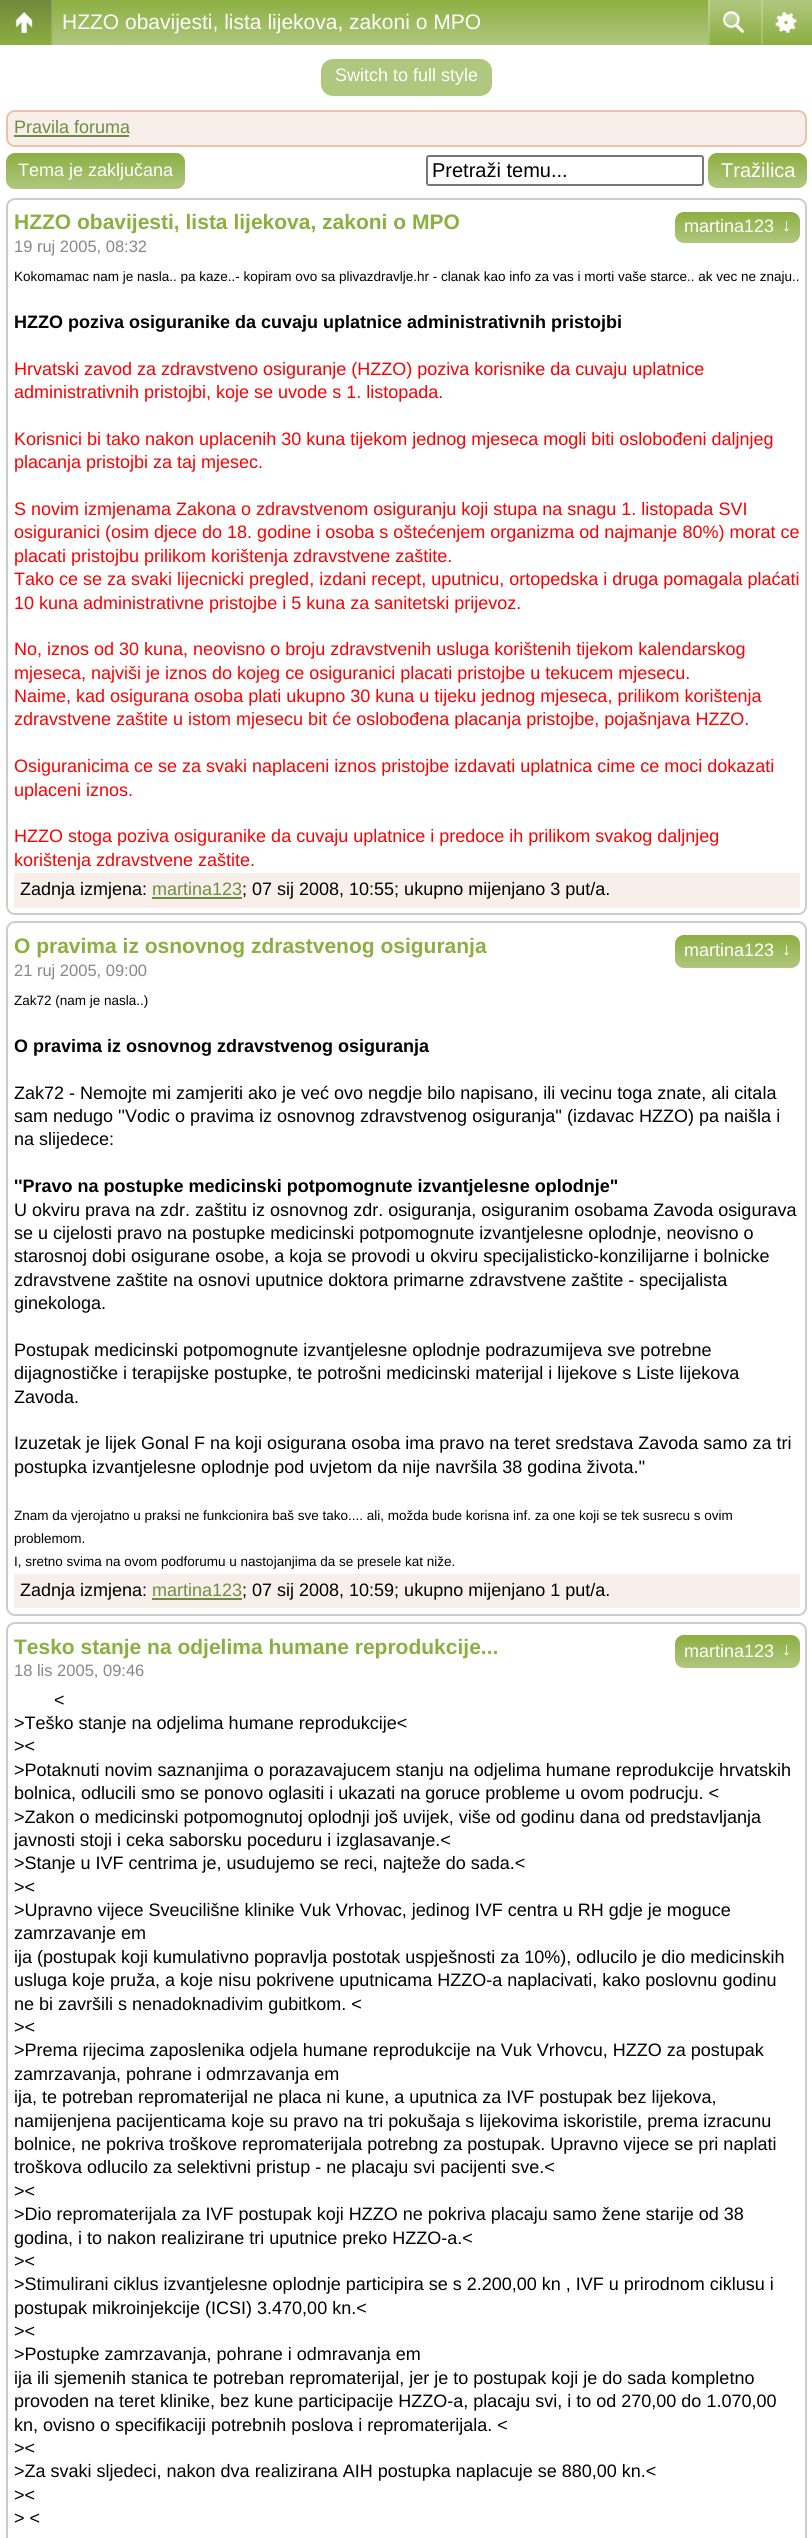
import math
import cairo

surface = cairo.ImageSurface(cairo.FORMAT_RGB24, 812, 2538)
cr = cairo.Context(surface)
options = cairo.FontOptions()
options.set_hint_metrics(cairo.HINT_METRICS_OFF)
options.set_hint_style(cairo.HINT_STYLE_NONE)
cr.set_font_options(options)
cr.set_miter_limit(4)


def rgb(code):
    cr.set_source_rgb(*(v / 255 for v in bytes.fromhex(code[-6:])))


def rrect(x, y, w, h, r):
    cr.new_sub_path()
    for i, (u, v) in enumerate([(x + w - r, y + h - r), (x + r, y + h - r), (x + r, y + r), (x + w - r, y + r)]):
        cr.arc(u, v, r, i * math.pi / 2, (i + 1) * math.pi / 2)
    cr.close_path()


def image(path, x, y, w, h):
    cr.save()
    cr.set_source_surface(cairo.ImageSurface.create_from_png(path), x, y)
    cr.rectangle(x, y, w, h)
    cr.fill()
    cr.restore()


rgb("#ffffff")
cr.paint()
gradient = cairo.LinearGradient(407, 0, 407, 45)
gradient.add_color_stop_rgba(0, 0.549, 0.686, 0.255, 1)
gradient.add_color_stop_rgba(1, 0.69, 0.78, 0.498, 1)
cr.set_source(gradient)
cr.rectangle(53, 0, 655, 45)
cr.fill()
gradient = cairo.LinearGradient(26, 0, 26, 45)
gradient.add_color_stop_rgba(0, 0.439, 0.533, 0.235, 1)
gradient.add_color_stop_rgba(1, 0.549, 0.686, 0.255, 1)
cr.set_source(gradient)
cr.rectangle(0, 0, 51, 45)
cr.fill()
gradient = cairo.LinearGradient(26, 0, 26, 45)
gradient.add_color_stop_rgba(0, 0.553, 0.627, 0.388, 1)
gradient.add_color_stop_rgba(1, 0.639, 0.749, 0.404, 1)
cr.set_source(gradient)
cr.rectangle(51, 0, 2, 45)
cr.fill()
image("img/1.png", 15, 12, 18, 21)
gradient = cairo.LinearGradient(734, 0, 734, 45)
gradient.add_color_stop_rgba(0, 0.69, 0.78, 0.498, 1)
gradient.add_color_stop_rgba(1, 0.545, 0.682, 0.251, 1)
cr.set_source(gradient)
cr.rectangle(710, 0, 51, 45)
cr.fill()
gradient = cairo.LinearGradient(734, 0, 734, 45)
gradient.add_color_stop_rgba(0, 0.753, 0.824, 0.6, 1)
gradient.add_color_stop_rgba(1, 0.635, 0.745, 0.4, 1)
cr.set_source(gradient)
cr.rectangle(708, 0, 2, 45)
cr.fill()
image("img/2.png", 723, 11, 21, 22)
gradient = cairo.LinearGradient(787, 0, 787, 45)
gradient.add_color_stop_rgba(0, 0.69, 0.78, 0.498, 1)
gradient.add_color_stop_rgba(1, 0.545, 0.682, 0.251, 1)
cr.set_source(gradient)
cr.rectangle(763, 0, 49, 45)
cr.fill()
gradient = cairo.LinearGradient(787, 0, 787, 45)
gradient.add_color_stop_rgba(0, 0.753, 0.824, 0.6, 1)
gradient.add_color_stop_rgba(1, 0.635, 0.745, 0.4, 1)
cr.set_source(gradient)
cr.rectangle(761, 0, 2, 45)
cr.fill()
image("img/3.png", 775, 12, 22, 21)
rgb("#b0c77f")
rrect(321, 59, 171, 37, 12)
cr.fill()
rgb("#f9efea")
rrect(7, 111, 799, 35, 8)
cr.fill_preserve()
rgb("#eec1aa")
cr.stroke()
rgb("#6d8e42")
cr.rectangle(14, 135, 115, 2)
cr.fill()
gradient = cairo.LinearGradient(95, 153, 95, 189)
gradient.add_color_stop_rgba(0, 0.549, 0.686, 0.255, 1)
gradient.add_color_stop_rgba(1, 0.69, 0.78, 0.498, 1)
cr.set_source(gradient)
rrect(6, 153, 179, 36, 9)
cr.fill()
rrect(427, 156, 276, 29, 2)
rgb("#767676")
cr.stroke()
gradient = cairo.LinearGradient(758, 153, 758, 188)
gradient.add_color_stop_rgba(0, 0.549, 0.686, 0.255, 1)
gradient.add_color_stop_rgba(1, 0.69, 0.78, 0.498, 1)
cr.set_source(gradient)
rrect(708, 153, 99, 35, 9)
cr.fill()
rrect(7, 199, 799, 715, 8)
rgb("#cccccc")
cr.stroke()
gradient = cairo.LinearGradient(737, 212, 737, 243)
gradient.add_color_stop_rgba(0, 0.549, 0.686, 0.255, 1)
gradient.add_color_stop_rgba(1, 0.69, 0.78, 0.498, 1)
cr.set_source(gradient)
rrect(675, 212, 125, 31, 9)
cr.fill()
rgb("#f9efea")
cr.rectangle(14, 873, 786, 35)
cr.fill()
rgb("#6d8e42")
cr.rectangle(152, 897, 90, 2)
cr.fill()
rrect(7, 922, 799, 693, 8)
rgb("#cccccc")
cr.stroke()
gradient = cairo.LinearGradient(737, 935, 737, 968)
gradient.add_color_stop_rgba(0, 0.549, 0.686, 0.255, 1)
gradient.add_color_stop_rgba(1, 0.69, 0.78, 0.498, 1)
cr.set_source(gradient)
rrect(675, 935, 125, 33, 9)
cr.fill()
rgb("#f9efea")
cr.rectangle(14, 1574, 786, 34)
cr.fill()
rgb("#6d8e42")
cr.rectangle(152, 1598, 90, 2)
cr.fill()
rrect(7, 1623, 799, 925, 8)
rgb("#cccccc")
cr.stroke()
gradient = cairo.LinearGradient(737, 1635, 737, 1668)
gradient.add_color_stop_rgba(0, 0.549, 0.686, 0.255, 1)
gradient.add_color_stop_rgba(1, 0.69, 0.78, 0.498, 1)
cr.set_source(gradient)
rrect(675, 1635, 125, 33, 9)
cr.fill()
cr.select_font_face("Liberation Sans")
cr.set_font_size(21)
rgb("#ffffff")
cr.move_to(62, 29)
cr.show_text("HZZO obavijesti, lista lijekova, zakoni o MPO")
cr.set_font_size(18)
cr.move_to(335, 81)
cr.show_text("Switch to full style")
rgb("#6d8e42")
cr.move_to(14, 133)
cr.show_text("Pravila foruma")
rgb("#ffffff")
cr.move_to(18, 176)
cr.show_text("Tema je zaključana")
cr.set_font_size(20)
rgb("#000000")
cr.move_to(432, 177)
cr.show_text("Pretraži temu...")
rgb("#ffffff")
cr.move_to(721, 177)
cr.show_text("Tražilica")
cr.select_font_face("Liberation Sans", cairo.FONT_SLANT_NORMAL, cairo.FONT_WEIGHT_BOLD)
cr.set_font_size(21)
rgb("#8caf41")
cr.move_to(14, 229)
cr.show_text("HZZO obavijesti, lista lijekova, zakoni o MPO")
cr.select_font_face("Liberation Sans")
cr.set_font_size(18)
rgb("#ffffff")
cr.move_to(684, 232)
cr.show_text("martina123")
cr.move_to(782, 231)
cr.show_text("↓")
cr.set_font_size(16.5)
rgb("#888888")
cr.move_to(14, 252)
cr.show_text("19 ruj 2005, 08:32")
cr.set_font_size(13.5)
rgb("#000000")
cr.move_to(14, 281)
cr.show_text("Kokomamac nam je nasla.. pa kaze..- kopiram ovo sa plivazdravlje.hr - clanak kao info za vas i morti vaše starce.. ak vec ne znaju..")
cr.select_font_face("Liberation Sans", cairo.FONT_SLANT_NORMAL, cairo.FONT_WEIGHT_BOLD)
cr.set_font_size(18)
cr.move_to(14, 328)
cr.show_text("HZZO poziva osiguranike da cuvaju uplatnice administrativnih pristojbi")
cr.select_font_face("Liberation Sans")
rgb("#ff0000")
for x, y, s in [
    (14, 375, "Hrvatski zavod za zdravstveno osiguranje (HZZO) poziva korisnike da cuvaju uplatnice"),
    (14, 398, "administrativnih pristojbi, koje se uvode s 1. listopada."),
    (14, 445, "Korisnici bi tako nakon uplacenih 30 kuna tijekom jednog mjeseca mogli biti oslobođeni daljnjeg"),
    (14, 468, "placanja pristojbi za taj mjesec."),
    (14, 515, "S novim izmjenama Zakona o zdravstvenom osiguranju koji stupa na snagu 1. listopada SVI"),
    (14, 538, "osiguranici (osim djece do 18. godine i osoba s oštećenjem organizma od najmanje 80%) morat ce"),
    (14, 562, "placati pristojbu prilikom korištenja zdravstvene zaštite."),
    (14, 585, "Tako ce se za svaki lijecnicki pregled, izdani recept, uputnicu, ortopedska i druga pomagala plaćati"),
    (14, 609, "10 kuna administrativne pristojbe i 5 kuna za sanitetski prijevoz."),
    (14, 655, "No, iznos od 30 kuna, neovisno o broju zdravstvenih usluga korištenih tijekom kalendarskog"),
    (14, 679, "mjeseca, najviši je iznos do kojeg ce osiguranici placati pristojbe u tekucem mjesecu."),
    (14, 702, "Naime, kad osigurana osoba plati ukupno 30 kuna u tijeku jednog mjeseca, prilikom korištenja"),
    (14, 725, "zdravstvene zaštite u istom mjesecu bit će oslobođena placanja pristojbe, pojašnjava HZZO."),
    (14, 772, "Osiguranicima ce se za svaki naplaceni iznos pristojbe izdavati uplatnica cime ce moci dokazati"),
    (14, 796, "uplaceni iznos."),
    (14, 842, "HZZO stoga poziva osiguranike da cuvaju uplatnice i predoce ih prilikom svakog daljnjeg"),
    (14, 866, "korištenja zdravstvene zaštite."),
]:
    cr.move_to(x, y)
    cr.show_text(s)
rgb("#000000")
cr.move_to(20, 895)
cr.show_text("Zadnja izmjena:")
rgb("#6d8e42")
cr.move_to(152, 895)
cr.show_text("martina123")
rgb("#000000")
cr.move_to(242, 895)
cr.show_text("; 07 sij 2008, 10:55; ukupno mijenjano 3 put/a.")
cr.select_font_face("Liberation Sans", cairo.FONT_SLANT_NORMAL, cairo.FONT_WEIGHT_BOLD)
cr.set_font_size(21)
rgb("#8caf41")
cr.move_to(14, 953)
cr.show_text("O pravima iz osnovnog zdrastvenog osiguranja")
cr.select_font_face("Liberation Sans")
cr.set_font_size(18)
rgb("#ffffff")
cr.move_to(684, 956)
cr.show_text("martina123")
cr.move_to(782, 955)
cr.show_text("↓")
cr.set_font_size(16.5)
rgb("#888888")
cr.move_to(14, 976)
cr.show_text("21 ruj 2005, 09:00")
cr.set_font_size(13.5)
rgb("#000000")
cr.move_to(14, 1005)
cr.show_text("Zak72 (nam je nasla..)")
cr.select_font_face("Liberation Sans", cairo.FONT_SLANT_NORMAL, cairo.FONT_WEIGHT_BOLD)
cr.set_font_size(18)
cr.move_to(14, 1052)
cr.show_text("O pravima iz osnovnog zdravstvenog osiguranja")
cr.select_font_face("Liberation Sans")
for x, y, s in [
    (14, 1099, "Zak72 - Nemojte mi zamjeriti ako je već ovo negdje bilo napisano, ili vecinu toga znate, ali citala"),
    (14, 1122, "sam nedugo ''Vodic o pravima iz osnovnog zdravstvenog osiguranja'' (izdavac HZZO) pa naišla i"),
    (14, 1145, "na slijedece:"),
]:
    cr.move_to(x, y)
    cr.show_text(s)
cr.select_font_face("Liberation Sans", cairo.FONT_SLANT_NORMAL, cairo.FONT_WEIGHT_BOLD)
cr.move_to(14, 1192)
cr.show_text("''Pravo na postupke medicinski potpomognute izvantjelesne oplodnje\"")
cr.select_font_face("Liberation Sans")
for x, y, s in [
    (14, 1216, "U okviru prava na zdr. zaštitu iz osnovnog zdr. osiguranja, osiguranim osobama Zavoda osigurava"),
    (14, 1239, "se u cijelosti pravo na postupke medicinski potpomognute izvantjelesne oplodnje, neovisno o"),
    (14, 1262, "starosnoj dobi osigurane osobe, a koja se provodi u okviru specijalisticko-konzilijarne i bolnicke"),
    (14, 1286, "zdravstvene zaštite na osnovi uputnice doktora primarne zdravstvene zaštite - specijalista"),
    (14, 1309, "ginekologa."),
    (14, 1356, "Postupak medicinski potpomognute izvantjelesne oplodnje podrazumijeva sve potrebne"),
    (14, 1379, "dijagnostičke i terapijske postupke, te potrošni medicinski materijal i lijekove s Liste lijekova"),
    (14, 1403, "Zavoda."),
    (14, 1449, "Izuzetak je lijek Gonal F na koji osigurana osoba ima pravo na teret sredstava Zavoda samo za tri"),
    (14, 1473, "postupka izvantjelesne oplodnje pod uvjetom da nije navršila 38 godina života.''"),
]:
    cr.move_to(x, y)
    cr.show_text(s)
cr.set_font_size(13.5)
for x, y, s in [
    (14, 1520, "Znam da vjerojatno u praksi ne funkcionira baš sve tako.... ali, možda bude korisna inf. za one koji se tek susrecu s ovim"),
    (14, 1543, "problemom."),
    (14, 1566, "I, sretno svima na ovom podforumu u nastojanjima da se presele kat niže."),
]:
    cr.move_to(x, y)
    cr.show_text(s)
cr.set_font_size(18)
cr.move_to(20, 1596)
cr.show_text("Zadnja izmjena:")
rgb("#6d8e42")
cr.move_to(152, 1596)
cr.show_text("martina123")
rgb("#000000")
cr.move_to(242, 1596)
cr.show_text("; 07 sij 2008, 10:59; ukupno mijenjano 1 put/a.")
cr.select_font_face("Liberation Sans", cairo.FONT_SLANT_NORMAL, cairo.FONT_WEIGHT_BOLD)
cr.set_font_size(21)
rgb("#8caf41")
cr.move_to(14, 1654)
cr.show_text("Tesko stanje na odjelima humane reprodukcije...")
cr.select_font_face("Liberation Sans")
cr.set_font_size(18)
rgb("#ffffff")
cr.move_to(684, 1657)
cr.show_text("martina123")
cr.move_to(782, 1655)
cr.show_text("↓")
cr.set_font_size(16.5)
rgb("#888888")
cr.move_to(14, 1676)
cr.show_text("18 lis 2005, 09:46")
cr.set_font_size(18)
rgb("#000000")
for x, y, s in [
    (54, 1706, "<"),
    (14, 1729, ">Teško stanje na odjelima humane reprodukcije<"),
    (14, 1752, "><"),
    (14, 1776, ">Potaknuti novim saznanjima o porazavajucem stanju na odjelima humane reprodukcije hrvatskih"),
    (14, 1799, "bolnica, odlucili smo se ponovo oglasiti i ukazati na goruce probleme u ovom podrucju. <"),
    (14, 1823, ">Zakon o medicinski potpomognutoj oplodnji još uvijek, više od godinu dana od predstavljanja"),
    (14, 1846, "javnosti stoji i ceka saborsku poceduru i izglasavanje.<"),
    (14, 1869, ">Stanje u IVF centrima je, usudujemo se reci, najteže do sada.<"),
    (14, 1893, "><"),
    (14, 1916, ">Upravno vijece Sveucilišne klinike Vuk Vrhovac, jedinog IVF centra u RH gdje je moguce"),
    (14, 1939, "zamrzavanje em"),
    (14, 1963, "ija (postupak koji kumulativno popravlja postotak uspješnosti za 10%), odlucilo je dio medicinskih"),
    (14, 1986, "usluga koje pruža, a koje nisu pokrivene uputnicama HZZO-a naplacivati, kako poslovnu godinu"),
    (14, 2010, "ne bi završili s nenadoknadivim gubitkom. <"),
    (14, 2033, "><"),
    (14, 2056, ">Prema rijecima zaposlenika odjela humane reprodukcije na Vuk Vrhovcu, HZZO za postupak"),
    (14, 2080, "zamrzavanja, pohrane i odmrzavanja em"),
    (14, 2103, "ija, te potreban repromaterijal ne placa ni kune, a uputnica za IVF postupak bez lijekova,"),
    (14, 2127, "namijenjena pacijenticama koje su pravo na tri pokušaja s lijekovima iskoristile, prema izracunu"),
    (14, 2150, "bolnice, ne pokriva troškove repromaterijala potrebng za postupak. Upravno vijece se pri naplati"),
    (14, 2173, "troškova odlucilo za selektivni pristup - ne placaju svi pacijenti sve.<"),
    (14, 2197, "><"),
    (14, 2220, ">Dio repromaterijala za IVF postupak koji HZZO ne pokriva placaju samo žene starije od 38"),
    (14, 2244, "godina, i to nakon realizirane tri uputnice preko HZZO-a.<"),
    (14, 2267, "><"),
    (14, 2290, ">Stimulirani ciklus izvantjelesne oplodnje participira se s 2.200,00 kn , IVF u prirodnom ciklusu i"),
    (14, 2314, "postupak mikroinjekcije (ICSI) 3.470,00 kn.<"),
    (14, 2337, "><"),
    (14, 2360, ">Postupke zamrzavanja, pohrane i odmravanja em"),
    (14, 2384, "ija ili sjemenih stanica te potreban repromaterijal, jer je to postupak koji je do sada kompletno"),
    (14, 2407, "provoden na teret klinike, bez kune participacije HZZO-a, placaju svi, i to od 270,00 do 1.070,00"),
    (14, 2431, "kn, ovisno o specifikaciji potrebnih poslova i repromaterijala. <"),
    (14, 2454, "><"),
    (14, 2477, ">Za svaki sljedeci, nakon dva realizirana AIH postupka naplacuje se 880,00 kn.<"),
    (14, 2501, "><"),
    (14, 2524, "> <"),
]:
    cr.move_to(x, y)
    cr.show_text(s)
surface.write_to_png("page.png")
